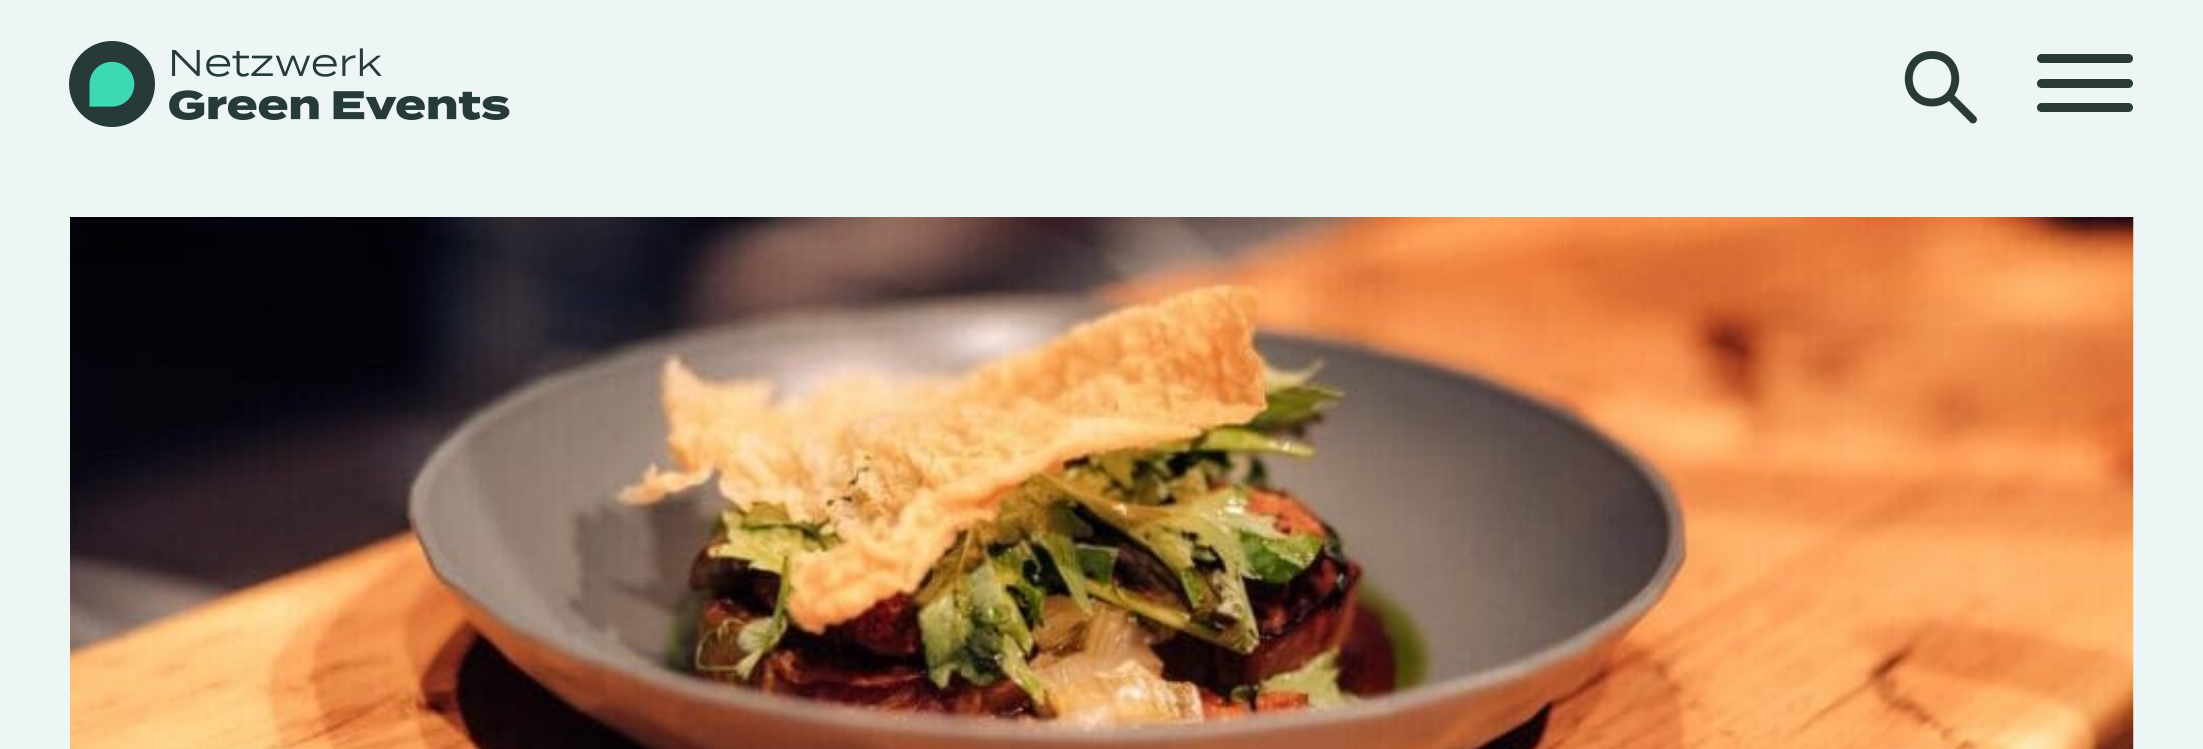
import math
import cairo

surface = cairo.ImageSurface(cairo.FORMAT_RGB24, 2203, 749)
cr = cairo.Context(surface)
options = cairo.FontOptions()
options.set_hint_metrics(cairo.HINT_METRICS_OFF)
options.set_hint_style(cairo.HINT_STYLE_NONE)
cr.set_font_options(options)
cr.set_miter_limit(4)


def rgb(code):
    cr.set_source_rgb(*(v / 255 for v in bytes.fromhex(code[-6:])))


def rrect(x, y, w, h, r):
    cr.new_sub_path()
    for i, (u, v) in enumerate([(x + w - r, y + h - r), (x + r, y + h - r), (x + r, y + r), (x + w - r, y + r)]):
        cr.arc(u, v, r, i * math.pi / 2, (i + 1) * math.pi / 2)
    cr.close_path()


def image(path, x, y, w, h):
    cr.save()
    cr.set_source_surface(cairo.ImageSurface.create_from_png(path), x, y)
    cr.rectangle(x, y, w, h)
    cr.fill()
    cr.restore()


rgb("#edf6f4")
cr.paint()
image("img/1.png", 69, 41, 441, 86)
cr.new_path()
cr.move_to(1932, 102.5)
cr.curve_to(1901, 102.5, 1901, 55, 1932, 55)
cr.curve_to(1963, 55, 1963, 102.5, 1932, 102.5)
rgb("#293b34")
cr.set_line_width(7.9)
cr.set_line_cap(cairo.LINE_CAP_ROUND)
cr.stroke()
cr.new_path()
cr.move_to(1951, 97.5)
cr.line_to(1973, 119.5)
cr.move_to(1973, 119.5)
cr.line_to(1973, 119.5)
cr.move_to(1973, 119.5)
cr.line_to(1973, 119.5)
cr.stroke()
rrect(2037, 54, 96, 9, 4.5)
cr.fill()
rrect(2037, 79, 96, 9, 4.5)
cr.fill()
rrect(2037, 103, 96, 9, 4.5)
cr.fill()
image("img/2.png", 70, 217, 2064, 532)
surface.write_to_png("page.png")
